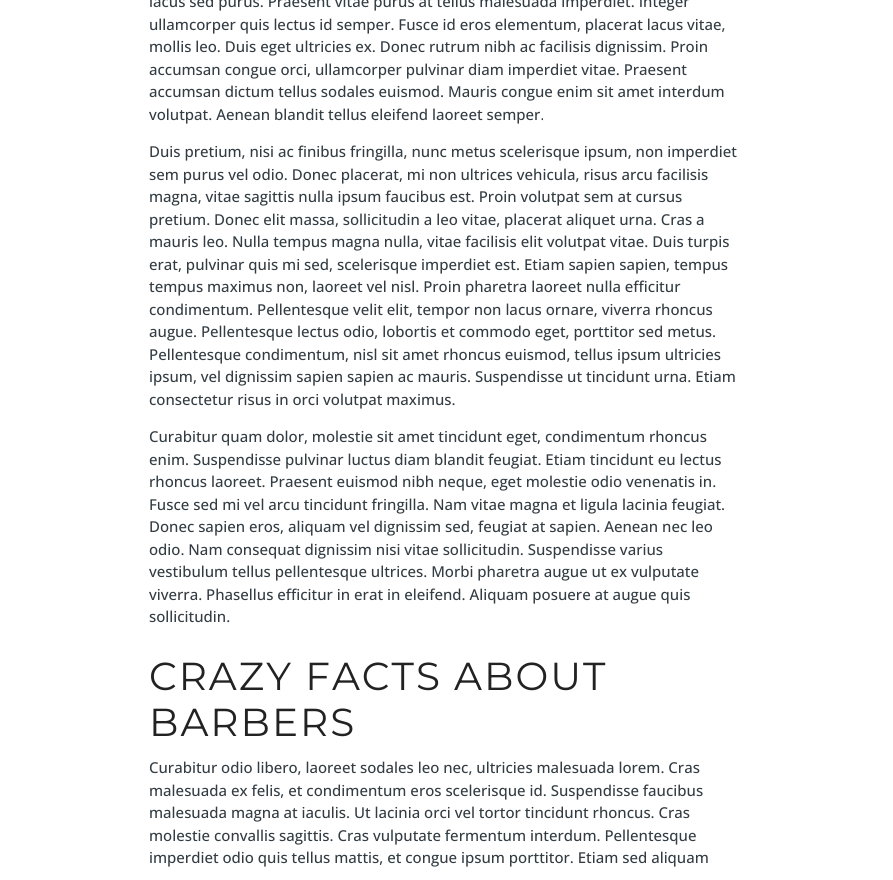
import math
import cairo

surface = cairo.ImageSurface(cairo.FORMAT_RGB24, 893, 880)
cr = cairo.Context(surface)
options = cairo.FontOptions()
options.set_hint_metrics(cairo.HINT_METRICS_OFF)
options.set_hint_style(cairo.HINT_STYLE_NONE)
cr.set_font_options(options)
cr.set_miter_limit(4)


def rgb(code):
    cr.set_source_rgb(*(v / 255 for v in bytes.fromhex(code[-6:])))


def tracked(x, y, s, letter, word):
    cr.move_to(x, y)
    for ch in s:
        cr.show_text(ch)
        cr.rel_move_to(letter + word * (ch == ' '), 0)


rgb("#ffffff")
cr.paint()
cr.select_font_face("Open Sans Medium")
cr.set_font_size(15)
rgb("#323c42")
for x, y, s in [
    (149, 7, "lacus sed purus. Praesent vitae purus at tellus malesuada imperdiet. Integer"),
    (149, 30, "ullamcorper quis lectus id semper. Fusce id eros elementum, placerat lacus vitae,"),
    (149, 52, "mollis leo. Duis eget ultricies ex. Donec rutrum nibh ac facilisis dignissim. Proin"),
    (149, 75, "accumsan congue orci, ullamcorper pulvinar diam imperdiet vitae. Praesent"),
    (149, 97, "accumsan dictum tellus sodales euismod. Mauris congue enim sit amet interdum"),
    (149, 120, "volutpat. Aenean blandit tellus eleifend laoreet semper."),
    (149, 157, "Duis pretium, nisi ac finibus fringilla, nunc metus scelerisque ipsum, non imperdiet"),
    (149, 180, "sem purus vel odio. Donec placerat, mi non ultrices vehicula, risus arcu facilisis"),
    (149, 202, "magna, vitae sagittis nulla ipsum faucibus est. Proin volutpat sem at cursus"),
    (149, 225, "pretium. Donec elit massa, sollicitudin a leo vitae, placerat aliquet urna. Cras a"),
    (149, 247, "mauris leo. Nulla tempus magna nulla, vitae facilisis elit volutpat vitae. Duis turpis"),
    (149, 270, "erat, pulvinar quis mi sed, scelerisque imperdiet est. Etiam sapien sapien, tempus"),
    (149, 292, "tempus maximus non, laoreet vel nisl. Proin pharetra laoreet nulla efficitur"),
    (149, 315, "condimentum. Pellentesque velit elit, tempor non lacus ornare, viverra rhoncus"),
    (149, 337, "augue. Pellentesque lectus odio, lobortis et commodo eget, porttitor sed metus."),
    (149, 360, "Pellentesque condimentum, nisl sit amet rhoncus euismod, tellus ipsum ultricies"),
    (149, 382, "ipsum, vel dignissim sapien sapien ac mauris. Suspendisse ut tincidunt urna. Etiam"),
    (149, 405, "consectetur risus in orci volutpat maximus."),
    (149, 442, "Curabitur quam dolor, molestie sit amet tincidunt eget, condimentum rhoncus"),
    (149, 465, "enim. Suspendisse pulvinar luctus diam blandit feugiat. Etiam tincidunt eu lectus"),
    (149, 487, "rhoncus laoreet. Praesent euismod nibh neque, eget molestie odio venenatis in."),
    (149, 510, "Fusce sed mi vel arcu tincidunt fringilla. Nam vitae magna et ligula lacinia feugiat."),
    (149, 532, "Donec sapien eros, aliquam vel dignissim sed, feugiat at sapien. Aenean nec leo"),
    (149, 555, "odio. Nam consequat dignissim nisi vitae sollicitudin. Suspendisse varius"),
    (149, 577, "vestibulum tellus pellentesque ultrices. Morbi pharetra augue ut ex vulputate"),
    (149, 600, "viverra. Phasellus efficitur in erat in eleifend. Aliquam posuere at augue quis"),
    (149, 622, "sollicitudin."),
]:
    cr.move_to(x, y)
    cr.show_text(s)
cr.select_font_face("Montserrat Thin")
cr.set_font_size(39)
rgb("#222222")
tracked(149, 690, "CRAZY FACTS ABOUT", 2, 0)
tracked(149, 736, "BARBERS", 2, 0)
cr.select_font_face("Open Sans Medium")
cr.set_font_size(15)
rgb("#323c42")
for x, y, s in [
    (149, 773, "Curabitur odio libero, laoreet sodales leo nec, ultricies malesuada lorem. Cras"),
    (149, 796, "malesuada ex felis, et condimentum eros scelerisque id. Suspendisse faucibus"),
    (149, 818, "malesuada magna at iaculis. Ut lacinia orci vel tortor tincidunt rhoncus. Cras"),
    (149, 841, "molestie convallis sagittis. Cras vulputate fermentum interdum. Pellentesque"),
    (149, 863, "imperdiet odio quis tellus mattis, et congue ipsum porttitor. Etiam sed aliquam"),
]:
    cr.move_to(x, y)
    cr.show_text(s)
surface.write_to_png("page.png")
